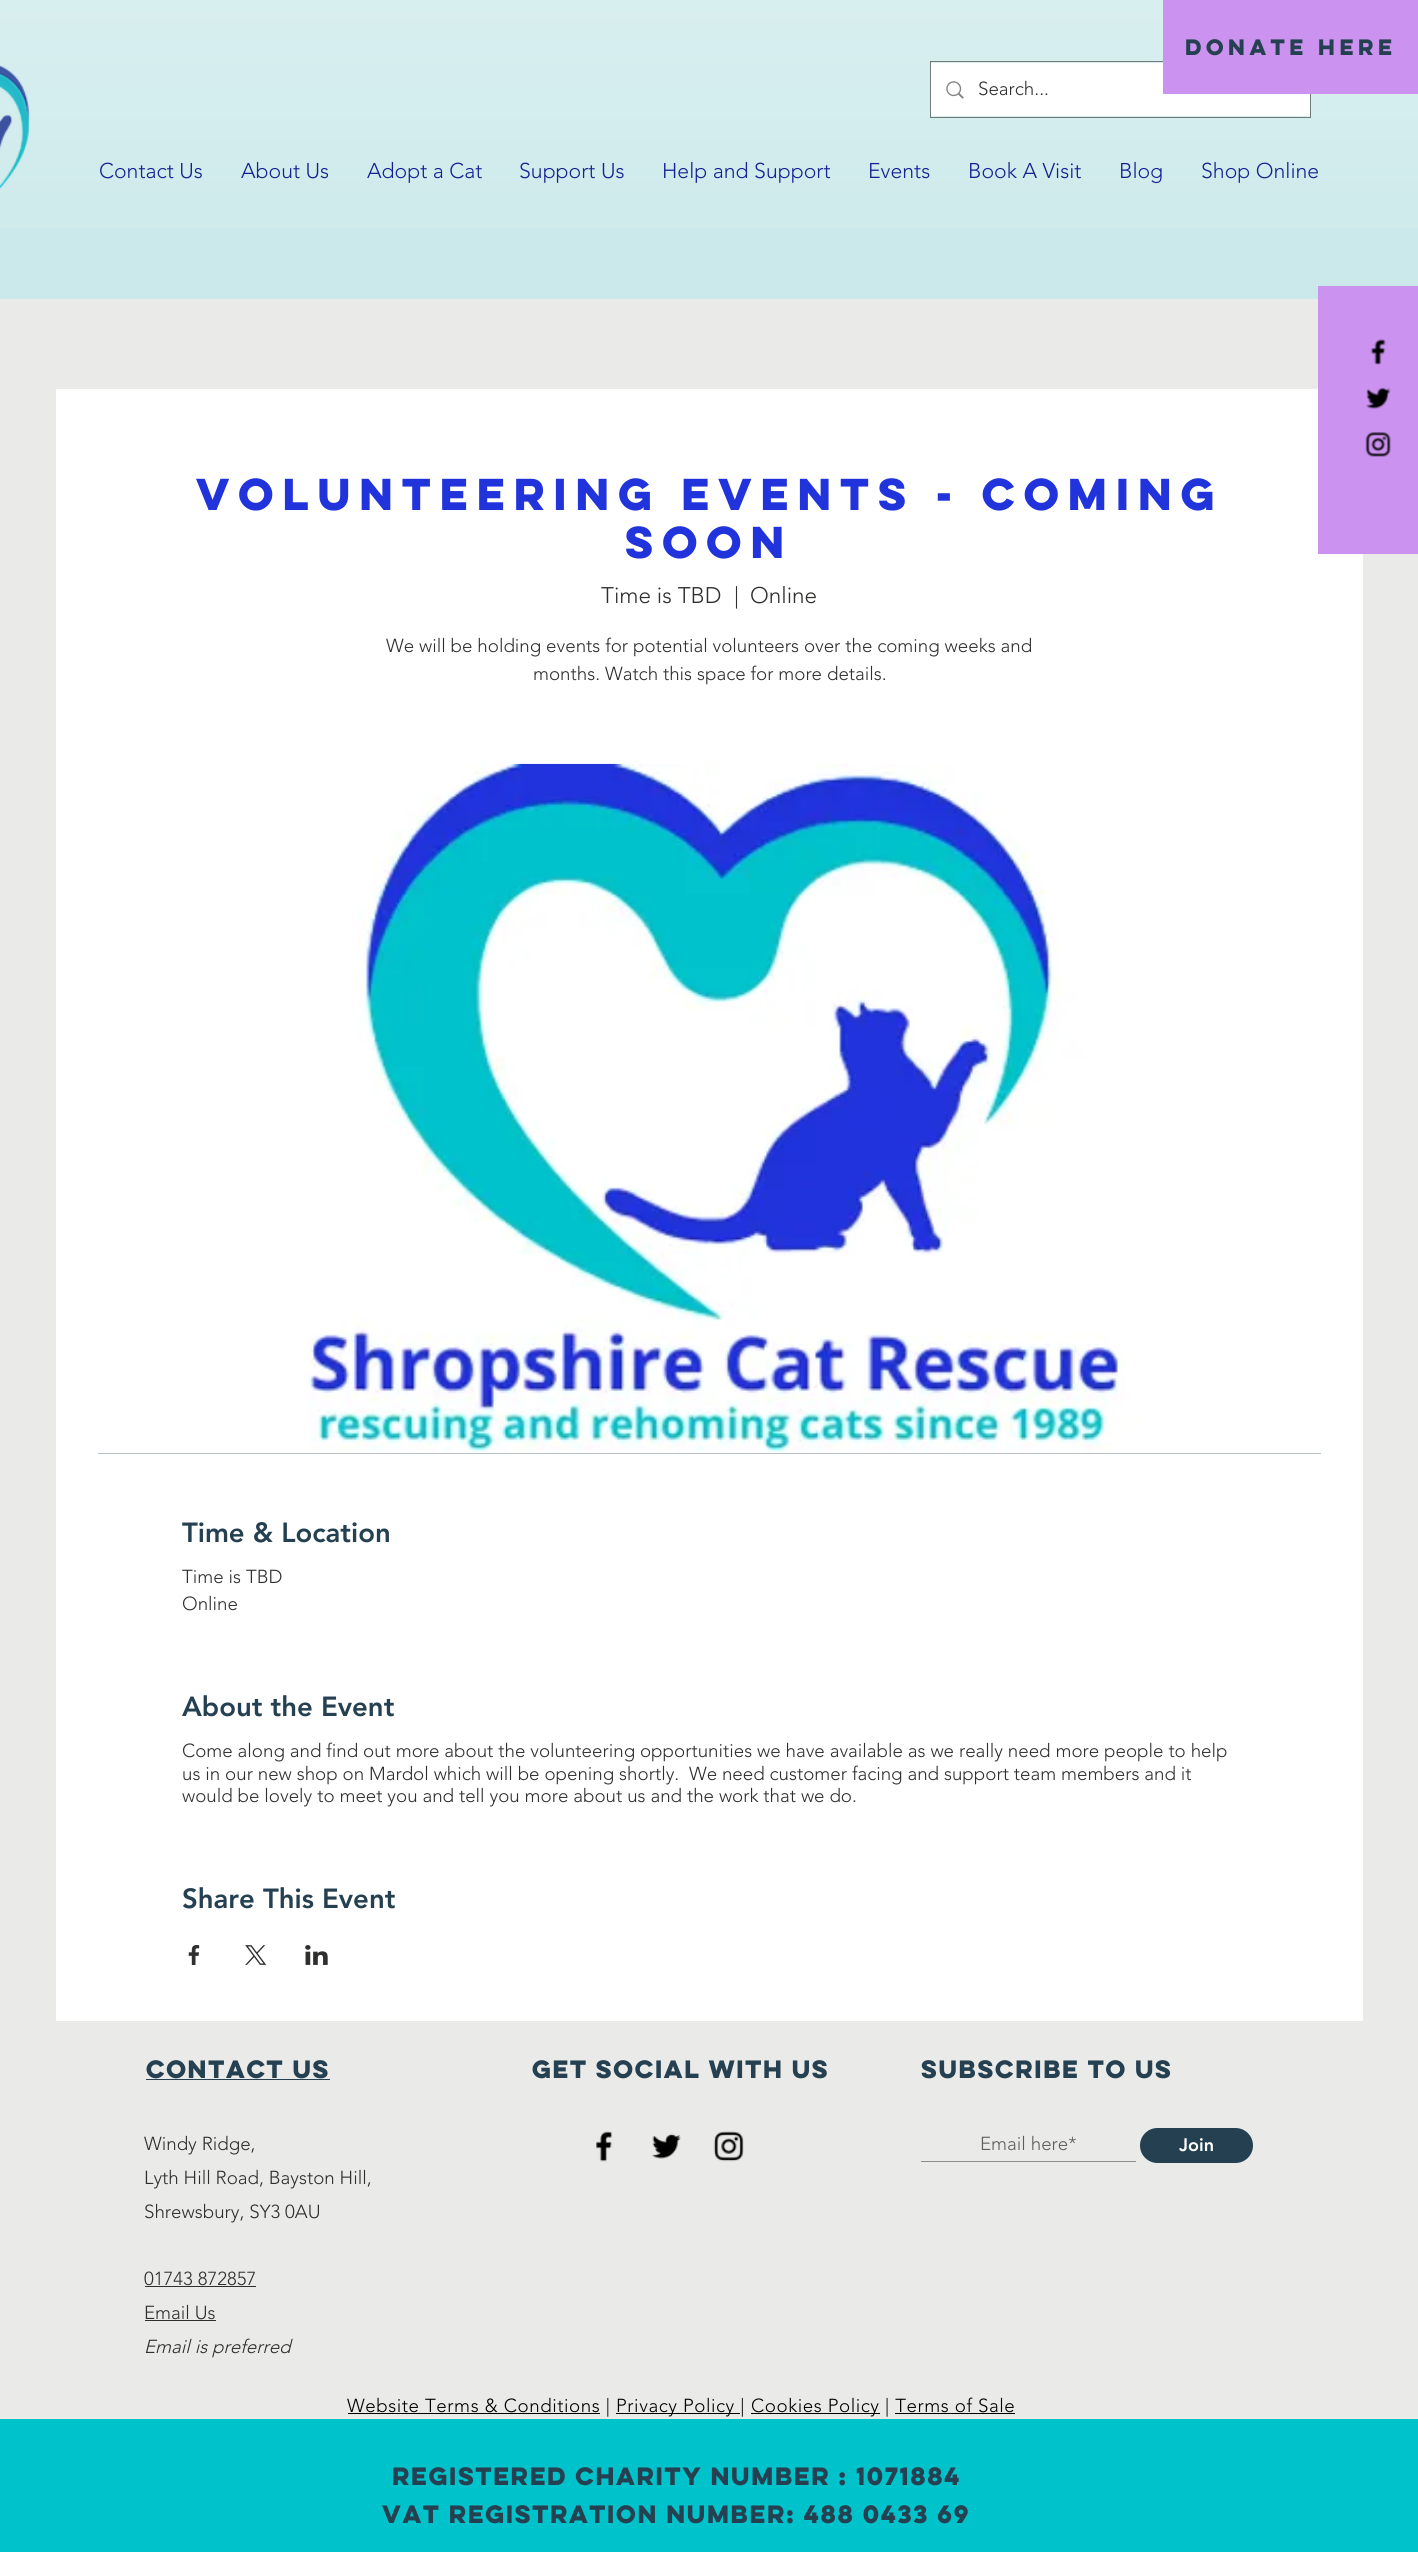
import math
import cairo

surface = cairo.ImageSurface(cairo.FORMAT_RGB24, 1418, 2552)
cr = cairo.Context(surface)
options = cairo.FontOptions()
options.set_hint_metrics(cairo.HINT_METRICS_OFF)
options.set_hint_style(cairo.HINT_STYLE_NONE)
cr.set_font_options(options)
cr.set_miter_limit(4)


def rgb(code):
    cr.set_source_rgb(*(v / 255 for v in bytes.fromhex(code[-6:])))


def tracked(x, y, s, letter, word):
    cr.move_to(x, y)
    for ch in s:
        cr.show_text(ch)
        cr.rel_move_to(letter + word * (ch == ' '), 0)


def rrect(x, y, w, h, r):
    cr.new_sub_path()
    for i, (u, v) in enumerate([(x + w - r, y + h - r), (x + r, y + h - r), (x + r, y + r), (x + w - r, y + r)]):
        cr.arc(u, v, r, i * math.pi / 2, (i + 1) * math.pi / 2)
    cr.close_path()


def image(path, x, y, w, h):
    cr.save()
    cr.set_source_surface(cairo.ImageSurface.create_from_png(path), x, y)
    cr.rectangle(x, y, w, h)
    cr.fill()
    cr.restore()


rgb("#eaeae8")
cr.paint()
rgb("#cbe9ea")
cr.rectangle(0, 0, 1418, 299)
cr.fill()
image("img/4.png", 0, 0, 1418, 228)
cr.rectangle(930.5, 61.5, 380, 56)
rgb("#717b7b")
cr.set_line_width(1)
cr.stroke()
for x, y, w, h, color in [
    (931, 63, 379, 53, "#ffffff"),
    (1163, 0, 255, 94, "#cb92f0"),
    (56, 389, 1307, 1632, "#ffffff"),
    (1318, 286, 100, 268, "#cb92f0"),
]:
    rgb(color)
    cr.rectangle(x, y, w, h)
    cr.fill()
image("img/1.png", 1370, 339, 16, 26)
image("img/2.png", 1366, 387, 25, 23)
image("img/3.png", 1365, 432, 26, 25)
image("img/5.png", 0, 65, 30, 124)
image("img/6.png", 946, 81, 18, 18)
rgb("#5b707c")
cr.rectangle(98, 1453, 1223, 1)
cr.fill()
image("img/7.png", 98, 763, 1223, 691)
image("img/8.png", 188, 1945, 12, 20)
image("img/9.png", 245, 1945, 22, 20)
image("img/10.png", 305, 1945, 23, 20)
rgb("#254151")
cr.rectangle(146, 2079, 184, 1)
cr.fill()
rgb("#8c8c8b")
cr.rectangle(921, 2161, 215, 1)
cr.fill()
rgb("#254151")
rrect(1140, 2128, 113, 35, 17.5)
cr.fill()
rgb("#2f2f2e")
cr.rectangle(145, 2286, 111, 1)
cr.fill()
cr.rectangle(145, 2320, 71, 1)
cr.fill()
image("img/11.png", 596, 2131, 17, 31)
image("img/12.png", 652, 2133, 29, 26)
image("img/13.png", 713, 2131, 31, 31)
for x, y, w, h, color in [
    (348, 2413, 252, 1, "#000000"),
    (616, 2413, 124, 1, "#000000"),
    (751, 2413, 129, 1, "#000000"),
    (895, 2413, 120, 1, "#000000"),
    (0, 2419, 1418, 133, "#00c2cb"),
]:
    rgb(color)
    cr.rectangle(x, y, w, h)
    cr.fill()
cr.select_font_face("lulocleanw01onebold", cairo.FONT_SLANT_NORMAL, cairo.FONT_WEIGHT_BOLD)
cr.set_font_size(20)
rgb("#254151")
cr.move_to(1185, 55)
cr.show_text("DONATE HERE")
cr.select_font_face("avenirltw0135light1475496 Light")
cr.set_font_size(18.75)
rgb("#2f2f2e")
cr.move_to(978, 95)
cr.show_text("Search...")
cr.set_font_size(21.25)
rgb("#162292")
for x, y, s in [
    (99, 178, "Contact Us"),
    (241, 178, "About Us"),
    (367, 178, "Adopt a Cat"),
    (519, 178, "Support Us"),
    (662, 178, "Help and Support"),
    (868, 178, "Events"),
    (968, 178, "Book A Visit"),
    (1119, 178, "Blog"),
    (1201, 178, "Shop Online"),
]:
    cr.move_to(x, y)
    cr.show_text(s)
cr.select_font_face("lulocleanw01onebold", cairo.FONT_SLANT_NORMAL, cairo.FONT_WEIGHT_BOLD)
cr.set_font_size(40)
rgb("#2133db")
cr.move_to(196, 510)
cr.show_text("Volunteering Events - Coming")
cr.move_to(625, 558)
cr.show_text("Soon")
cr.select_font_face("avenirltw0135light1475496 Light")
cr.set_font_size(22.5)
rgb("#2f2f2e")
for x, y, s in [
    (601, 603, "Time is TBD"),
    (734, 603, "|"),
    (750, 603, "Online"),
]:
    cr.move_to(x, y)
    cr.show_text(s)
cr.set_font_size(18.75)
cr.move_to(386, 652)
cr.show_text("We will be holding events for potential volunteers over the coming weeks and")
cr.move_to(533, 680)
cr.show_text("months. Watch this space for more details.")
cr.select_font_face("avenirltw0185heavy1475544 Black")
cr.set_font_size(27.5)
rgb("#254151")
cr.move_to(182, 1542)
cr.show_text("Time & Location")
cr.select_font_face("avenirltw0135light1475496 Light")
cr.set_font_size(18.75)
rgb("#2f2f2e")
cr.move_to(182, 1583)
cr.show_text("Time is TBD")
cr.move_to(182, 1610)
cr.show_text("Online")
cr.select_font_face("avenirltw0185heavy1475544 Black")
cr.set_font_size(27.5)
rgb("#254151")
cr.move_to(182, 1716)
cr.show_text("About the Event")
cr.select_font_face("avenirltw0135light1475496 Light")
cr.set_font_size(18.75)
rgb("#2f2f2e")
for x, y, s in [
    (182, 1757, "Come along and find out more about the volunteering opportunities we have available as we really need more people to help"),
    (182, 1780, "us in our new shop on Mardol which will be opening shortly.  We need customer facing and support team members and it"),
    (182, 1802, "would be lovely to meet you and tell you more about us and the work that we do."),
]:
    cr.move_to(x, y)
    cr.show_text(s)
cr.select_font_face("avenirltw0185heavy1475544 Black")
cr.set_font_size(27.5)
rgb("#254151")
cr.move_to(182, 1908)
cr.show_text("Share This Event")
cr.select_font_face("lulocleanw01onebold", cairo.FONT_SLANT_NORMAL, cairo.FONT_WEIGHT_BOLD)
cr.set_font_size(22.5)
for x, y, s in [
    (146, 2078, "Contact Us"),
    (532, 2078, "get social with us"),
    (921, 2078, "SUBSCRIBE to us"),
]:
    tracked(x, y, s, -3.4, 0)
cr.select_font_face("avenirltw0135light1475496 Light")
cr.set_font_size(18.75)
rgb("#5e5e5d")
cr.move_to(980, 2150)
cr.show_text("Email here*")
cr.select_font_face("avenirltw0185heavy1475544 Black")
cr.set_font_size(18)
rgb("#ffffff")
cr.move_to(1179, 2151)
cr.show_text("Join")
cr.select_font_face("avenirltw0135light1475496 Light")
cr.set_font_size(18.75)
rgb("#2f2f2e")
for x, y, s in [
    (144, 2150, "Windy Ridge,"),
    (144, 2184, "Lyth Hill Road, Bayston Hill,"),
    (144, 2218, "Shrewsbury, SY3 0AU"),
    (144, 2285, "01743 872857"),
    (144, 2319, "Email Us"),
]:
    cr.move_to(x, y)
    cr.show_text(s)
cr.select_font_face("avenirltw0135light1475496 Light", cairo.FONT_SLANT_ITALIC)
cr.move_to(144, 2353)
cr.show_text("Email is preferred")
cr.select_font_face("avenirltw0135light1475496 Light")
rgb("#000000")
for x, y, s in [
    (347, 2412, "Website Terms & Conditions |"),
    (616, 2412, "Privacy Policy |"),
    (751, 2412, "Cookies Policy | Terms of Sale"),
]:
    tracked(x, y, s, 0.55, 0)
cr.select_font_face("lulocleanw01onebold", cairo.FONT_SLANT_NORMAL, cairo.FONT_WEIGHT_BOLD)
cr.set_font_size(22.5)
rgb("#254151")
tracked(392, 2485, "Registered Charity Number : 1071884", -3.4, 0)
tracked(382, 2523, "VaT Registration number: 488 0433 69", -3.4, 0)
surface.write_to_png("page.png")
